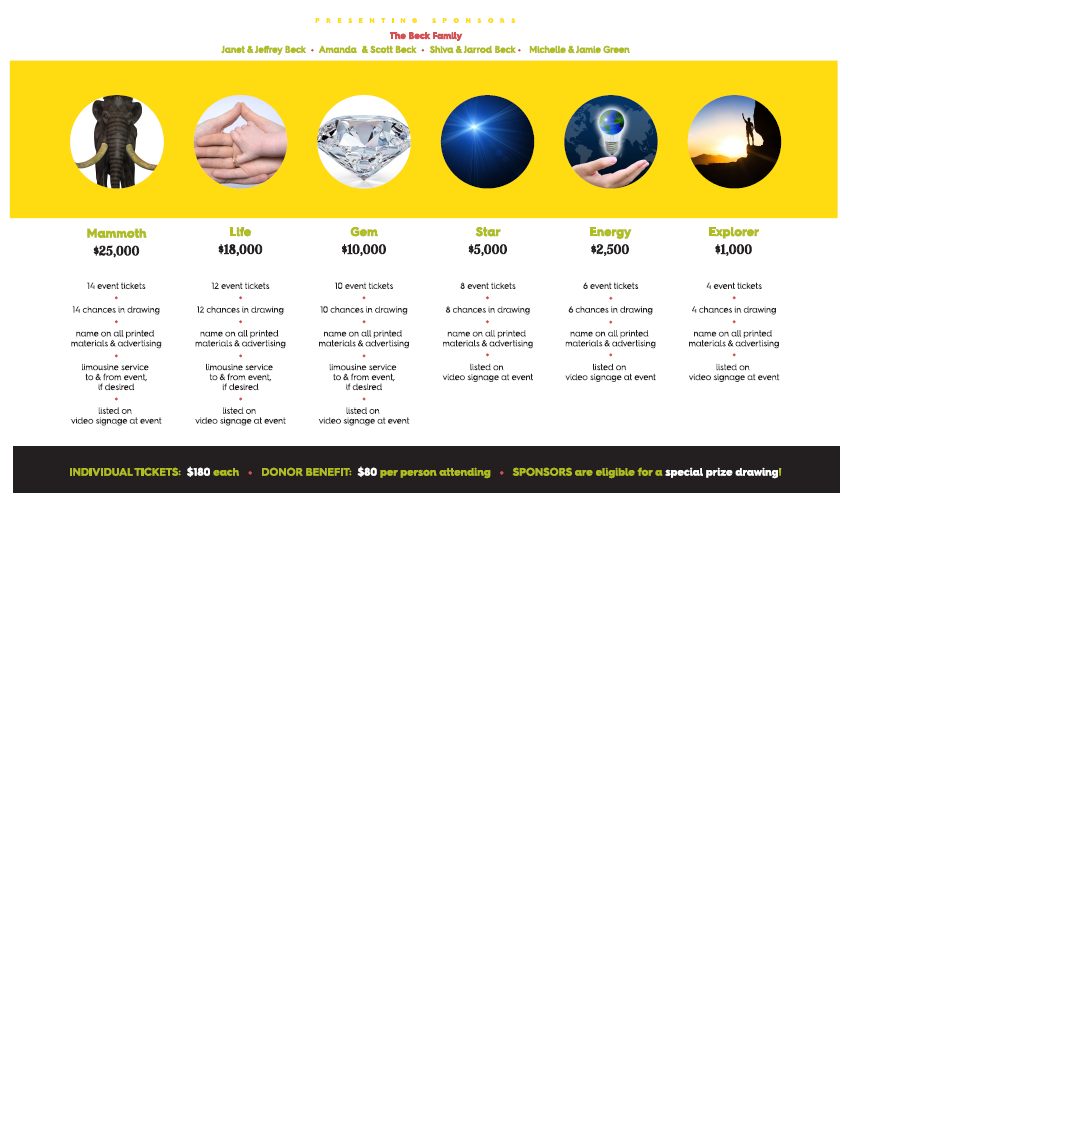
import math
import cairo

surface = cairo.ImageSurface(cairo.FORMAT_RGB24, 1084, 1137)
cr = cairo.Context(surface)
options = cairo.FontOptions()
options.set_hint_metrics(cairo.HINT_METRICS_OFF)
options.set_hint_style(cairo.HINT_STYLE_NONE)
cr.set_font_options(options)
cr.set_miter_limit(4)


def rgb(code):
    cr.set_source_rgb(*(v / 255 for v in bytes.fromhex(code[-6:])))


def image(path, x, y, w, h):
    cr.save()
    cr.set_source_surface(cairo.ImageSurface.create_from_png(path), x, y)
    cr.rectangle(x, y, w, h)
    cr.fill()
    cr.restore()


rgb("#ffffff")
cr.paint()
image("img/1.png", 9, 18, 831, 475)
surface.write_to_png("page.png")
